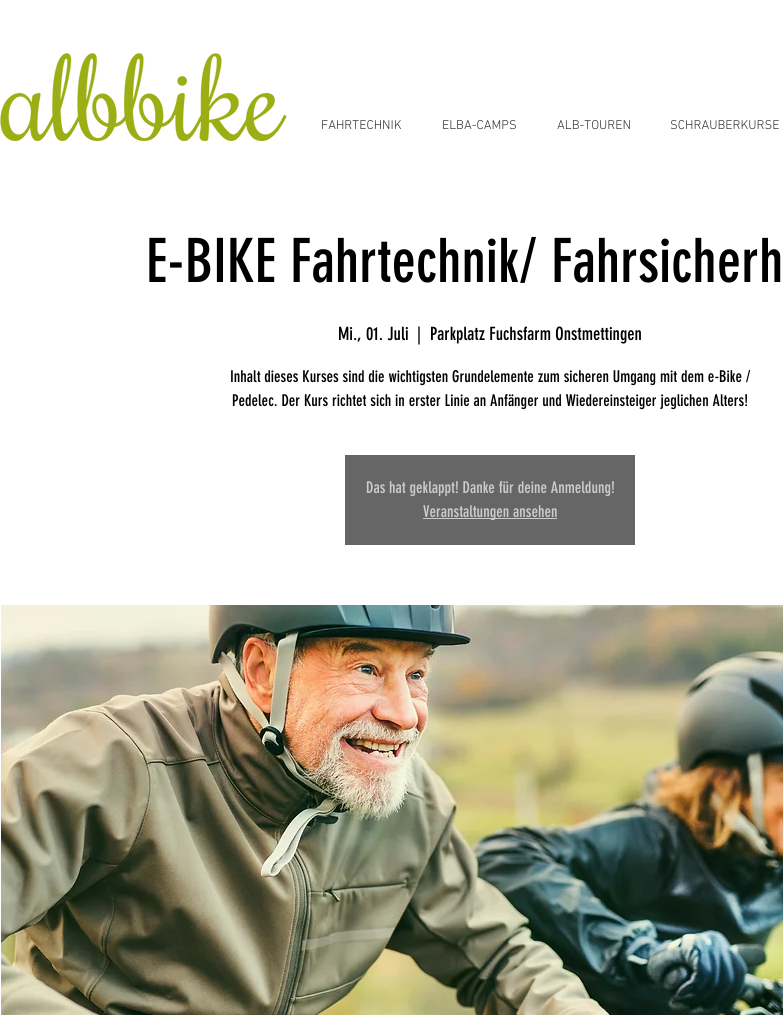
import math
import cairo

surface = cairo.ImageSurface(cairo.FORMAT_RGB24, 783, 1015)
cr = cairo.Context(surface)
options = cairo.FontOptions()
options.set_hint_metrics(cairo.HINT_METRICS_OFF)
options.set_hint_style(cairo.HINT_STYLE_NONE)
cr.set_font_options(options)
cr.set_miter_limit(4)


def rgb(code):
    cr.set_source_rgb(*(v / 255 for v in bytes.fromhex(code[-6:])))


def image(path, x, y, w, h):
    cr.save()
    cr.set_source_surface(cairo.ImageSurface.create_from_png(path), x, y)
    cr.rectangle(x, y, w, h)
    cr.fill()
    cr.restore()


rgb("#ffffff")
cr.paint()
image("img/1.png", 0, 53, 287, 88)
rgb("#666666")
cr.rectangle(345, 455, 290, 90)
cr.fill()
rgb("#cccccc")
cr.rectangle(423, 518, 134, 1)
cr.fill()
image("img/2.png", 1, 605, 782, 410)
cr.select_font_face("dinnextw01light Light")
cr.set_font_size(13)
rgb("#333333")
for x, y, s in [
    (321, 129, "FAHRTECHNIK"),
    (442, 129, "ELBA-CAMPS"),
    (557, 129, "ALB-TOUREN"),
    (670, 129, "SCHRAUBERKURSE"),
]:
    cr.move_to(x, y)
    cr.show_text(s)
cr.select_font_face("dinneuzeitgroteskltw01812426")
cr.set_font_size(60)
rgb("#000000")
cr.move_to(146, 282)
cr.show_text("E-BIKE Fahrtechnik/ Fahrsicherh")
cr.set_font_size(18)
for x, y, s in [
    (338, 340, "Mi., 01. Juli"),
    (417, 340, "|"),
    (430, 340, "Parkplatz Fuchsfarm Onstmettingen"),
]:
    cr.move_to(x, y)
    cr.show_text(s)
cr.set_font_size(16)
cr.move_to(230, 382)
cr.show_text("Inhalt dieses Kurses sind die wichtigsten Grundelemente zum sicheren Umgang mit dem e-Bike /")
cr.move_to(232, 406)
cr.show_text("Pedelec. Der Kurs richtet sich in erster Linie an Anfänger und Wiedereinsteiger jeglichen Alters!")
rgb("#cccccc")
cr.move_to(366, 493)
cr.show_text("Das hat geklappt! Danke für deine Anmeldung!")
cr.move_to(423, 517)
cr.show_text("Veranstaltungen ansehen")
surface.write_to_png("page.png")
